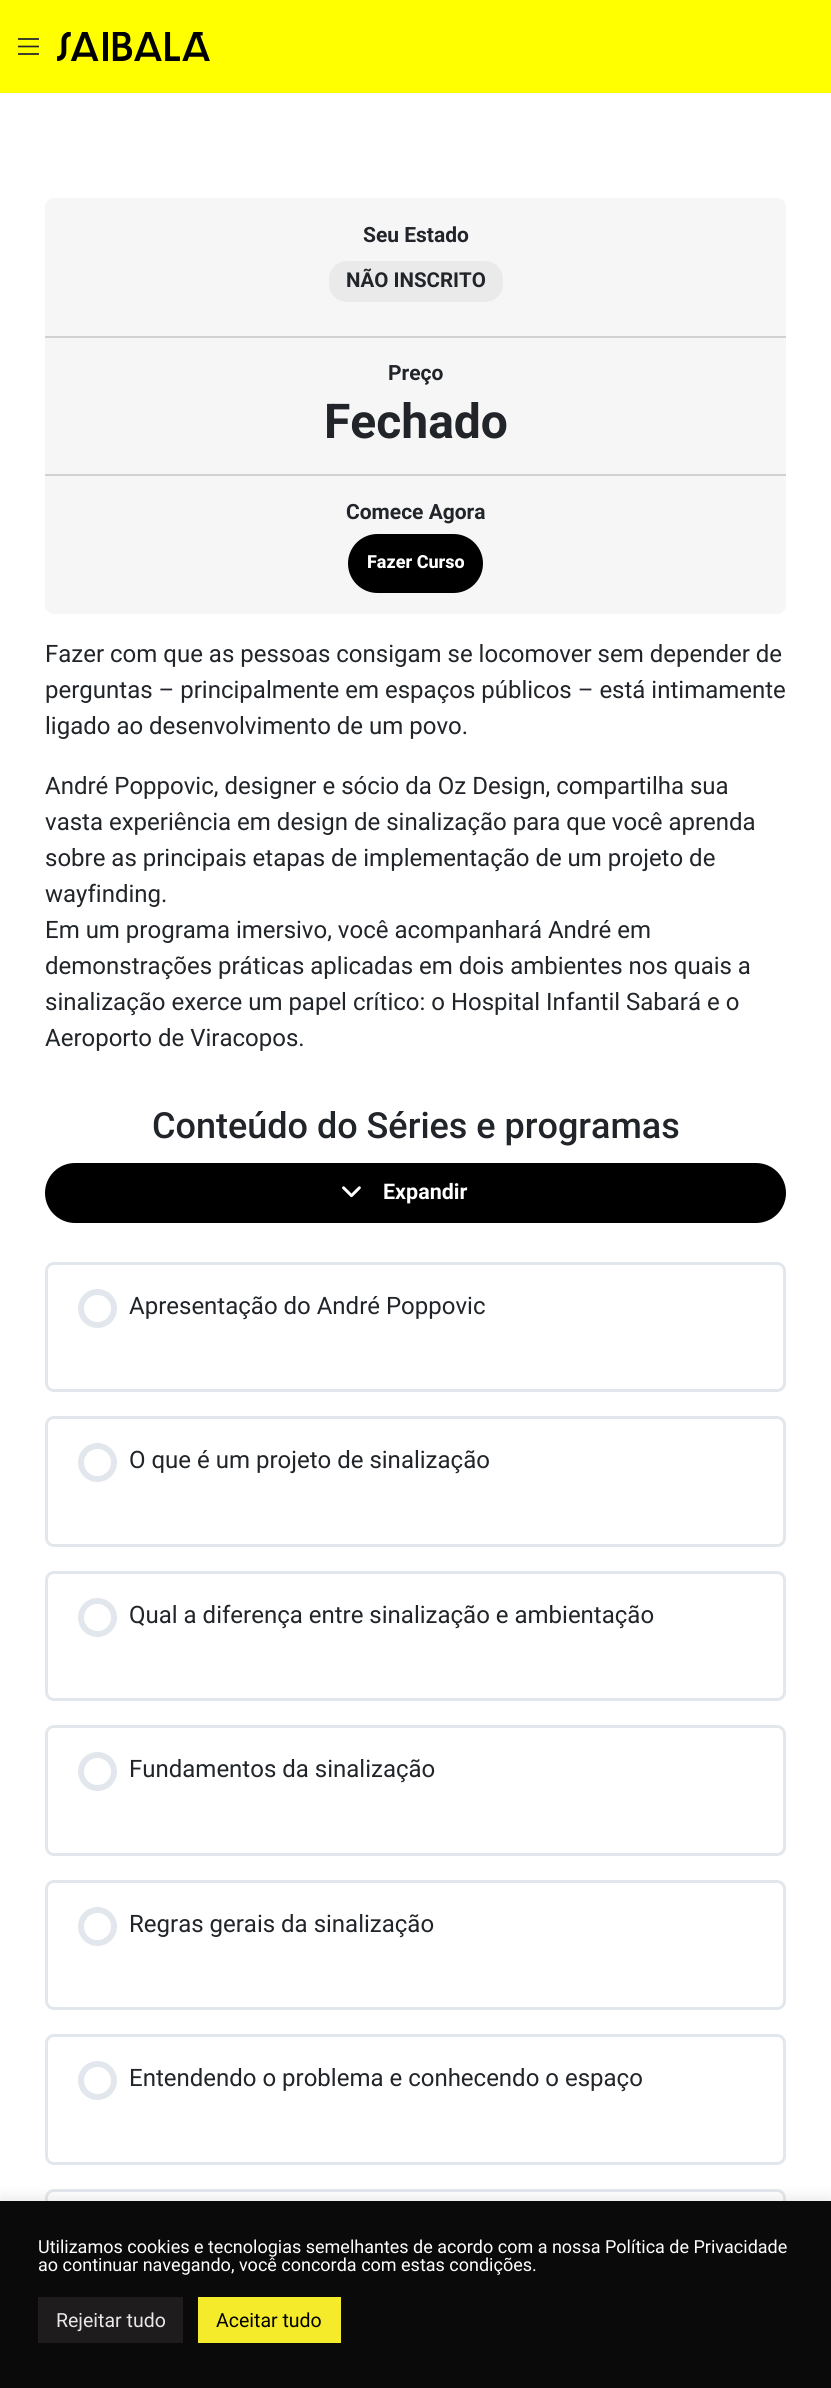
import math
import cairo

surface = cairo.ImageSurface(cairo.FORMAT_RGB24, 831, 2388)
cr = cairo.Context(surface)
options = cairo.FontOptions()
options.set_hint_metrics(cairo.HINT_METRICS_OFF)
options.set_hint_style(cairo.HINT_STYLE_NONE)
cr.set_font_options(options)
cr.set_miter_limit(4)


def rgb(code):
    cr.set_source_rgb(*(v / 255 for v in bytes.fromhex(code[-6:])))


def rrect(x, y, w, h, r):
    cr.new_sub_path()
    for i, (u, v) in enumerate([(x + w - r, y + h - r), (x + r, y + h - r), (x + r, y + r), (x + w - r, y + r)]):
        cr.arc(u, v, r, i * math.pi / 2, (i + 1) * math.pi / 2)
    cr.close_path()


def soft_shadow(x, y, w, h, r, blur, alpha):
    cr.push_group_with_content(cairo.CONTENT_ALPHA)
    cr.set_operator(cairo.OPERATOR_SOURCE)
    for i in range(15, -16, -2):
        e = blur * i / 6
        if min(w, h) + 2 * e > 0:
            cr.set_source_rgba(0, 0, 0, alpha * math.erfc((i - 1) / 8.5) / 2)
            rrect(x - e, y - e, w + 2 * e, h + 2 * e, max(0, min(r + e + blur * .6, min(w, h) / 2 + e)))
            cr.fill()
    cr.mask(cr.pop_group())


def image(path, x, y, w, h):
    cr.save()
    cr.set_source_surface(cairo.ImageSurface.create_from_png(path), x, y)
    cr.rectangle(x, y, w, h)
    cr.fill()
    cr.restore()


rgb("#ffffff")
cr.paint()
rgb("#ffff00")
cr.rectangle(0, 0, 831, 93)
cr.fill()
image("img/1.png", 18, 38, 21, 17)
image("img/2.png", 57, 32, 153, 29)
rgb("#f6f6f6")
rrect(45, 198, 741, 416, 9)
cr.fill()
rgb("#d1d1d1")
cr.rectangle(45, 336, 741, 2)
cr.fill()
rgb("#eaeaea")
rrect(329, 261, 174, 41, 18)
cr.fill()
rgb("#d1d1d1")
cr.rectangle(45, 474, 741, 2)
cr.fill()
rgb("#000000")
rrect(348, 534, 135, 59, 29.5)
cr.fill()
rrect(45, 1163, 741, 60, 30)
cr.fill()
image("img/3.png", 342, 1186, 19, 12)
rrect(46.5, 1263.5, 738, 127, 7.5)
rgb("#e2e7ed")
cr.set_line_width(3)
cr.stroke()
cr.arc(97.5, 1308.5, 16.5, 0, 2 * math.pi)
cr.set_line_width(6)
cr.stroke()
rrect(46.5, 1417.5, 738, 128, 7.5)
cr.set_line_width(3)
cr.stroke()
cr.arc(97.5, 1462.5, 16.5, 0, 2 * math.pi)
cr.set_line_width(6)
cr.stroke()
rrect(46.5, 1572.5, 738, 127, 7.5)
cr.set_line_width(3)
cr.stroke()
cr.arc(97.5, 1617.5, 16.5, 0, 2 * math.pi)
cr.set_line_width(6)
cr.stroke()
rrect(46.5, 1726.5, 738, 128, 7.5)
cr.set_line_width(3)
cr.stroke()
cr.arc(97.5, 1771.5, 16.5, 0, 2 * math.pi)
cr.set_line_width(6)
cr.stroke()
rrect(46.5, 1881.5, 738, 127, 7.5)
cr.set_line_width(3)
cr.stroke()
cr.arc(97.5, 1926.5, 16.5, 0, 2 * math.pi)
cr.set_line_width(6)
cr.stroke()
rrect(46.5, 2035.5, 738, 128, 7.5)
cr.set_line_width(3)
cr.stroke()
cr.arc(97.5, 2080.5, 16.5, 0, 2 * math.pi)
cr.set_line_width(6)
cr.stroke()
rrect(46.5, 2190.5, 738, 127, 7.5)
cr.set_line_width(3)
cr.stroke()
rgb("#acabab")
soft_shadow(0, 2199, 831, 188, 0, 7.5, 0.3)
for x, y, w, h, color in [
    (0, 2201, 831, 187, "#0a0a0a"),
    (38, 2297, 145, 46, "#1e1c1c"),
    (198, 2297, 143, 46, "#f6eb2a"),
]:
    rgb(color)
    cr.rectangle(x, y, w, h)
    cr.fill()
cr.select_font_face("Roboto", cairo.FONT_SLANT_NORMAL, cairo.FONT_WEIGHT_BOLD)
cr.set_font_size(21)
rgb("#212529")
cr.move_to(363, 242)
cr.show_text("Seu Estado")
cr.set_font_size(20.5)
cr.move_to(346, 287)
cr.show_text("NÃO INSCRITO")
cr.set_font_size(21)
cr.move_to(388, 380)
cr.show_text("Preço")
cr.set_font_size(48)
cr.move_to(324, 438)
cr.show_text("Fechado")
cr.set_font_size(21)
cr.move_to(346, 519)
cr.show_text("Comece Agora")
cr.select_font_face("Roboto ExtraBold")
cr.set_font_size(18)
rgb("#ffffff")
cr.move_to(367, 568)
cr.show_text("Fazer Curso")
cr.select_font_face("Roboto")
cr.set_font_size(24)
rgb("#212529")
for x, y, s in [
    (45, 662, "Fazer com que as pessoas consigam se locomover sem depender de"),
    (45, 698, "perguntas – principalmente em espaços públicos – está intimamente"),
    (45, 734, "ligado ao desenvolvimento de um povo."),
    (45, 794, "André Poppovic, designer e sócio da Oz Design, compartilha sua"),
    (45, 830, "vasta experiência em design de sinalização para que você aprenda"),
    (45, 866, "sobre as principais etapas de implementação de um projeto de"),
    (45, 902, "wayfinding."),
    (45, 938, "Em um programa imersivo, você acompanhará André em"),
    (45, 974, "demonstrações práticas aplicadas em dois ambientes nos quais a"),
    (45, 1010, "sinalização exerce um papel crítico: o Hospital Infantil Sabará e o"),
    (45, 1046, "Aeroporto de Viracopos."),
]:
    cr.move_to(x, y)
    cr.show_text(s)
cr.select_font_face("Roboto Medium")
cr.set_font_size(36)
cr.move_to(152, 1138)
cr.show_text("Conteúdo do Séries e programas")
cr.select_font_face("Roboto", cairo.FONT_SLANT_NORMAL, cairo.FONT_WEIGHT_BOLD)
cr.set_font_size(21.5)
rgb("#ffffff")
cr.move_to(383, 1199)
cr.show_text("Expandir")
cr.select_font_face("Roboto")
cr.set_font_size(24)
rgb("#212529")
for x, y, s in [
    (129, 1314, "Apresentação do André Poppovic"),
    (129, 1468, "O que é um projeto de sinalização"),
    (129, 1623, "Qual a diferença entre sinalização e ambientação"),
    (129, 1777, "Fundamentos da sinalização"),
    (129, 1932, "Regras gerais da sinalização"),
    (129, 2086, "Entendendo o problema e conhecendo o espaço"),
]:
    cr.move_to(x, y)
    cr.show_text(s)
cr.set_font_size(18)
rgb("#ffffff")
cr.move_to(38, 2253)
cr.show_text("Utilizamos cookies e tecnologias semelhantes de acordo com a nossa Política de Privacidade")
cr.move_to(38, 2271)
cr.show_text("ao continuar navegando, você concorda com estas condições.")
cr.set_font_size(19.5)
rgb("#e8e8e8")
cr.move_to(56, 2327)
cr.show_text("Rejeitar tudo")
rgb("#000000")
cr.move_to(216, 2327)
cr.show_text("Aceitar tudo")
surface.write_to_png("page.png")
